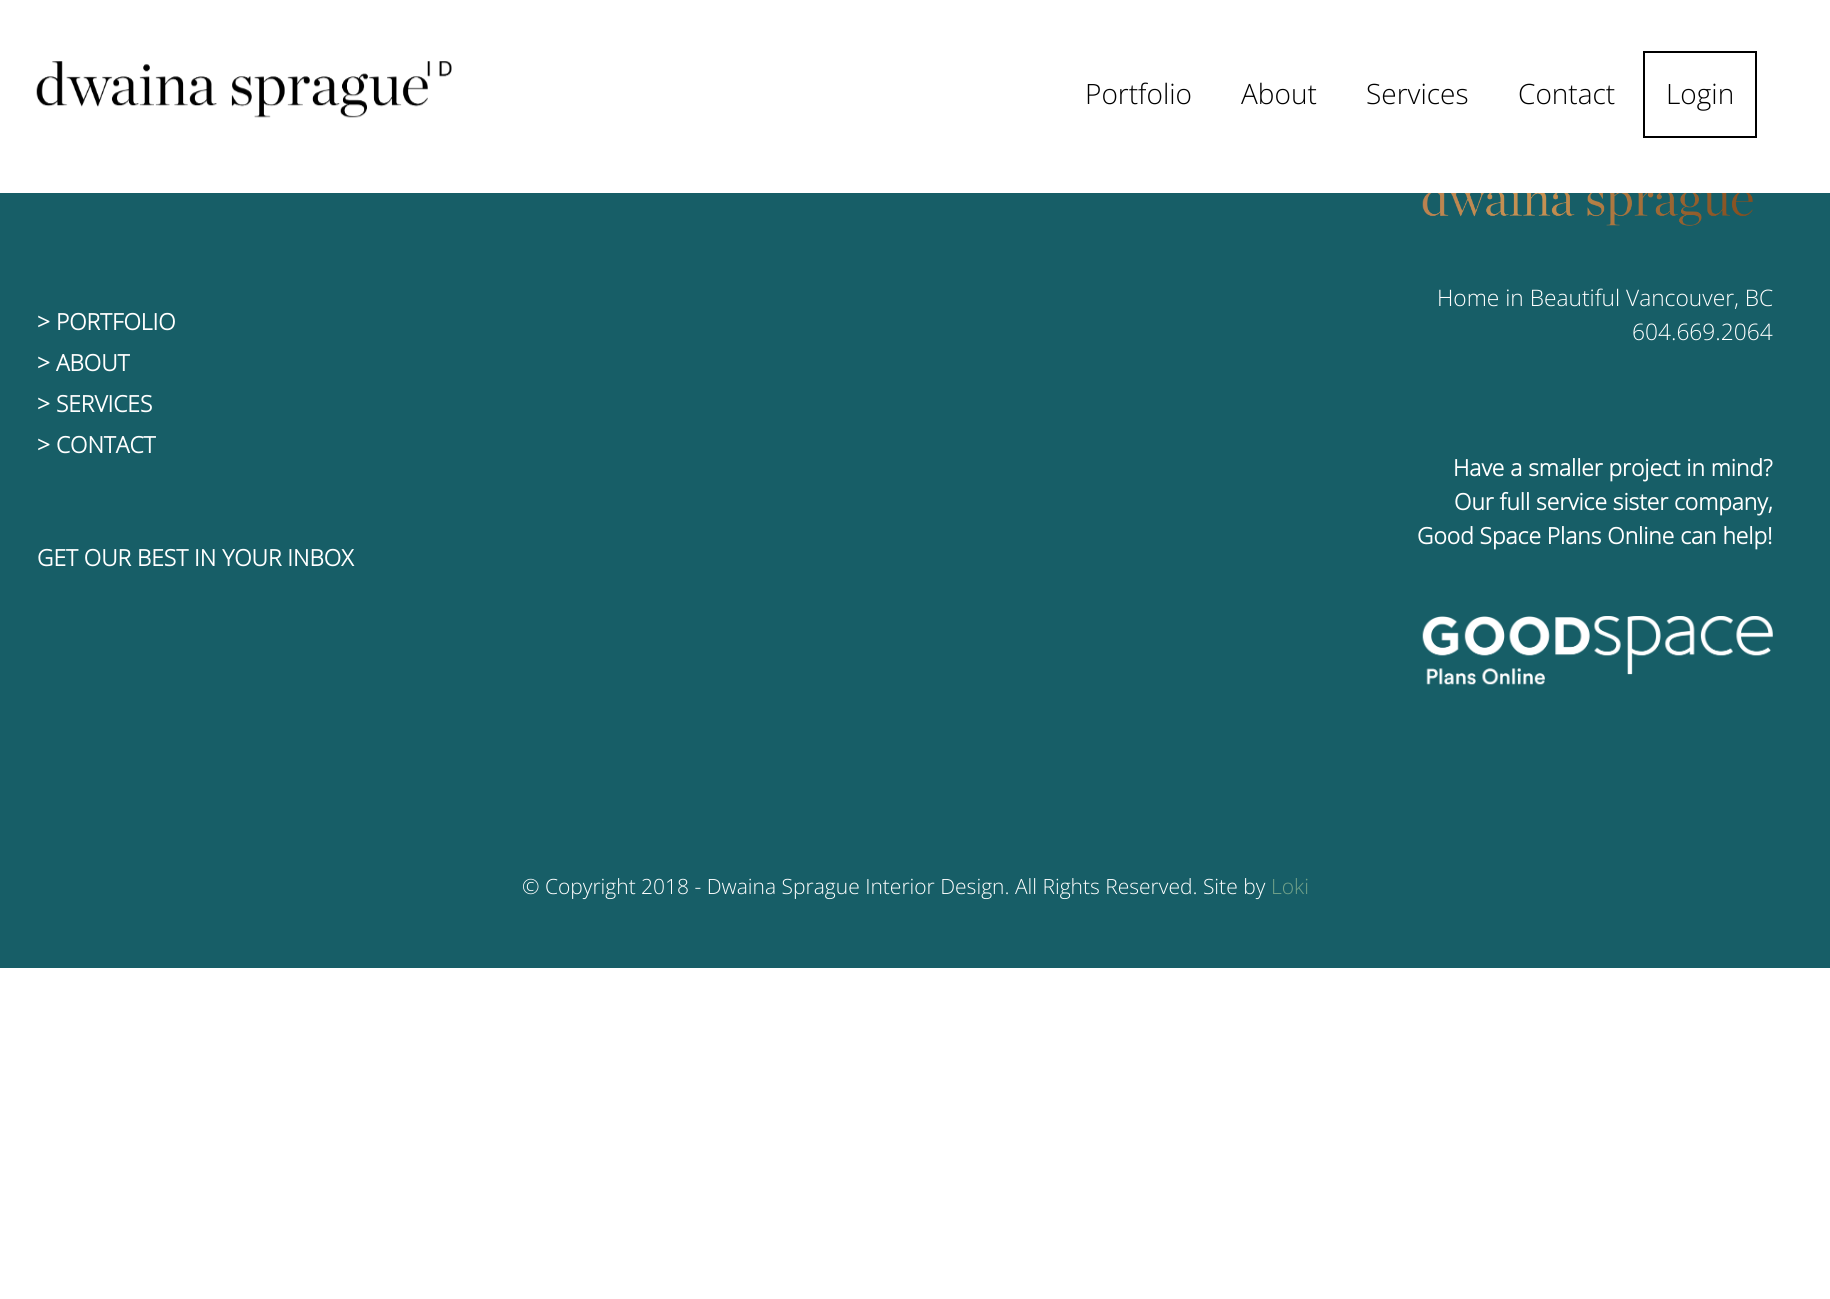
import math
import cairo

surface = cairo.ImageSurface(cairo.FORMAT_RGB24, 1830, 1299)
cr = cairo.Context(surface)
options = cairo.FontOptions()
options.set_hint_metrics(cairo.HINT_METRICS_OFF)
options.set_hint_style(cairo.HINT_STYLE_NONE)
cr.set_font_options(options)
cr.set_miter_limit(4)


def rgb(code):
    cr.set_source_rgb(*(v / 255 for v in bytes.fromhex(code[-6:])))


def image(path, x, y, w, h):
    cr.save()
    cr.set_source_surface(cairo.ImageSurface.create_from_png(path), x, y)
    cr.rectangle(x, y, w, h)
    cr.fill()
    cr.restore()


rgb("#ffffff")
cr.paint()
image("img/1.png", 36, 61, 416, 57)
cr.rectangle(1644, 52, 112, 85)
rgb("#000000")
cr.stroke()
rgb("#175e67")
cr.rectangle(0, 193, 1830, 775)
cr.fill()
image("img/2.png", 1422, 193, 331, 33)
image("img/3.png", 1422, 616, 351, 69)
cr.select_font_face("Open Sans Light")
cr.set_font_size(28)
rgb("#000000")
for x, y, s in [
    (1085, 104, "Portfolio"),
    (1241, 104, "About"),
    (1366, 104, "Services"),
    (1518, 104, "Contact"),
    (1666, 104, "Login"),
]:
    cr.move_to(x, y)
    cr.show_text(s)
cr.select_font_face("Open Sans", cairo.FONT_SLANT_NORMAL, cairo.FONT_WEIGHT_BOLD)
cr.set_font_size(22.75)
rgb("#ffffff")
for x, y, s in [
    (37, 330, "> PORTFOLIO"),
    (37, 371, "> ABOUT"),
    (37, 412, "> SERVICES"),
    (37, 453, "> CONTACT"),
    (37, 566, "GET OUR BEST IN YOUR INBOX"),
]:
    cr.move_to(x, y)
    cr.show_text(s)
cr.select_font_face("Open Sans Light")
cr.move_to(1437, 306)
cr.show_text("Home in Beautiful Vancouver, BC")
cr.move_to(1632, 340)
cr.show_text("604.669.2064")
cr.select_font_face("Open Sans", cairo.FONT_SLANT_NORMAL, cairo.FONT_WEIGHT_BOLD)
for x, y, s in [
    (1453, 476, "Have a smaller project in mind?"),
    (1454, 510, "Our full service sister company,"),
    (1417, 544, "Good Space Plans Online can help!"),
]:
    cr.move_to(x, y)
    cr.show_text(s)
cr.select_font_face("Open Sans Light")
cr.set_font_size(21)
cr.move_to(522, 894)
cr.show_text("© Copyright 2018 - Dwaina Sprague Interior Design. All Rights Reserved. Site by")
rgb("#71a189")
cr.move_to(1271, 894)
cr.show_text("Loki")
surface.write_to_png("page.png")
